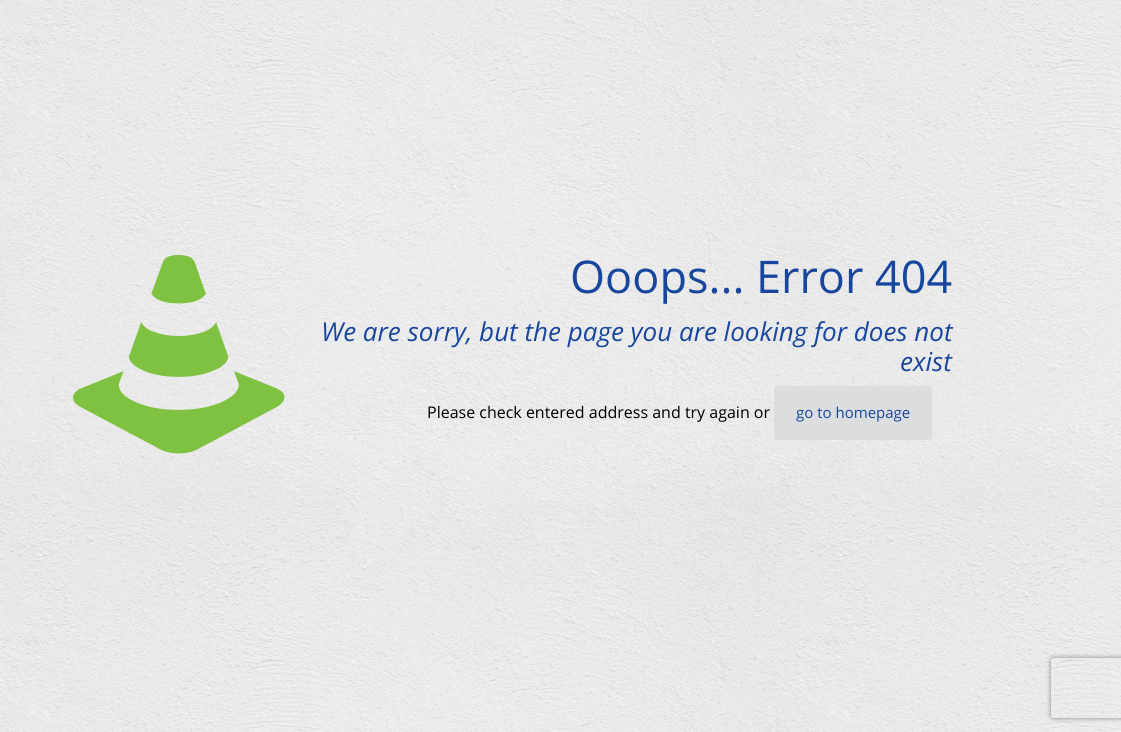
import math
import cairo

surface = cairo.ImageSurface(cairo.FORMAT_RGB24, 1121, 732)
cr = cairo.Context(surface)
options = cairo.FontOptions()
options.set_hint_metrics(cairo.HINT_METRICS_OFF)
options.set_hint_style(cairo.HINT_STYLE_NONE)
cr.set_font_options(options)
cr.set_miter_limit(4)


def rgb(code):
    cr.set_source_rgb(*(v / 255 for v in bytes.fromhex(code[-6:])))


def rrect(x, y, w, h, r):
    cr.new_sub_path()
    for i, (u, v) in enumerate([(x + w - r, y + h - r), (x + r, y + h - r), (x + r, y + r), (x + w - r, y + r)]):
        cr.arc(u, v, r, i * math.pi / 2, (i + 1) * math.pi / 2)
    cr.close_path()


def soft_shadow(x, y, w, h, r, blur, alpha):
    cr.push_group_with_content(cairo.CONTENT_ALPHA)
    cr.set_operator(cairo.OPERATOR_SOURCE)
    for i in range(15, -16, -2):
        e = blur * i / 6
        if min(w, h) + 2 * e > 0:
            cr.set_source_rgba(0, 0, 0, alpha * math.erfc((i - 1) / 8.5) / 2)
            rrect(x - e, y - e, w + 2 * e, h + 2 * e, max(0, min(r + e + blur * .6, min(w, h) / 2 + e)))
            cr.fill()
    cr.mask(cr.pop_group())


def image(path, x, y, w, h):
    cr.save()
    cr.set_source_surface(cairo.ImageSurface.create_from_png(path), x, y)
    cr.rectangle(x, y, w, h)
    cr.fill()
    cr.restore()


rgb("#ffffff")
cr.paint()
image("img/1.png", 0, 0, 1121, 732)
image("img/2.png", 73, 255, 212, 199)
rgb("#dbdddf")
rrect(774, 386, 158, 54, 3)
cr.fill()
cr.save()
cr.set_fill_rule(cairo.FILL_RULE_EVEN_ODD)
cr.new_path()
cr.move_to(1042, 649)
cr.line_to(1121, 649)
cr.line_to(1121, 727)
cr.line_to(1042, 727)
cr.close_path()
cr.move_to(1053, 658)
cr.line_to(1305, 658)
cr.curve_to(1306, 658, 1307, 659, 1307, 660)
cr.line_to(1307, 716)
cr.curve_to(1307, 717, 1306, 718, 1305, 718)
cr.line_to(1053, 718)
cr.curve_to(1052, 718, 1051, 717, 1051, 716)
cr.line_to(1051, 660)
cr.curve_to(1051, 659, 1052, 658, 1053, 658)
cr.close_path()
cr.clip()
rgb("#808080")
soft_shadow(1051, 658, 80, 60, 2, 2.5, 1)
cr.restore()
cr.select_font_face("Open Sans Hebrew")
cr.set_font_size(45)
rgb("#17469e")
cr.move_to(570, 293)
cr.show_text("Ooops... Error 404")
cr.select_font_face("Open Sans", cairo.FONT_SLANT_ITALIC)
cr.set_font_size(26)
cr.move_to(321, 341)
cr.show_text("We are sorry, but the page you are looking for does not")
cr.move_to(900, 371)
cr.show_text("exist")
cr.select_font_face("Open Sans Hebrew")
cr.set_font_size(16)
rgb("#000000")
cr.move_to(427, 418)
cr.show_text("Please check entered address and try again or")
cr.set_font_size(15)
rgb("#17469e")
cr.move_to(796, 418)
cr.show_text("go to homepage")
surface.write_to_png("page.png")
